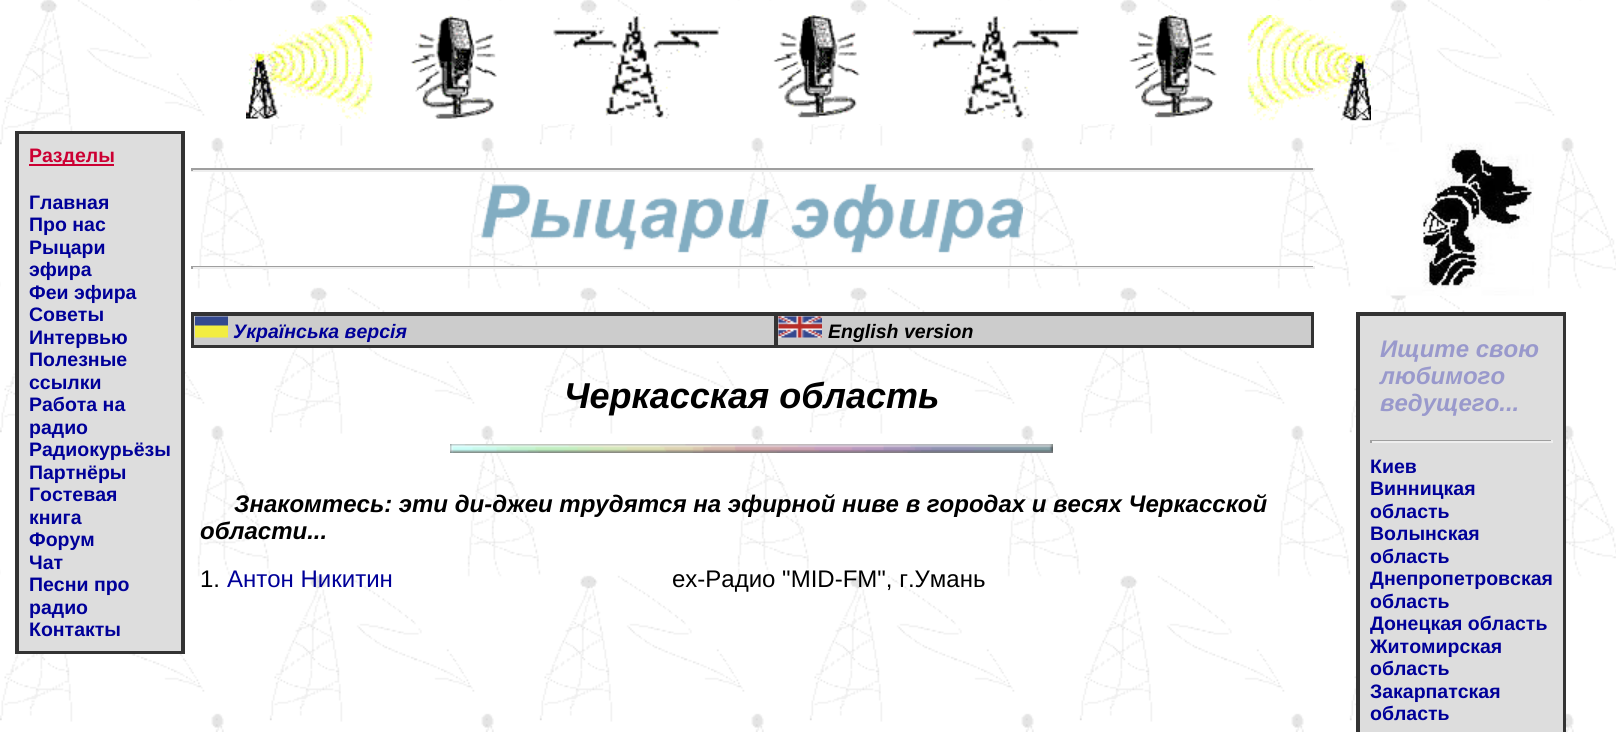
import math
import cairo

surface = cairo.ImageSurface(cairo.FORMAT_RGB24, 1616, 732)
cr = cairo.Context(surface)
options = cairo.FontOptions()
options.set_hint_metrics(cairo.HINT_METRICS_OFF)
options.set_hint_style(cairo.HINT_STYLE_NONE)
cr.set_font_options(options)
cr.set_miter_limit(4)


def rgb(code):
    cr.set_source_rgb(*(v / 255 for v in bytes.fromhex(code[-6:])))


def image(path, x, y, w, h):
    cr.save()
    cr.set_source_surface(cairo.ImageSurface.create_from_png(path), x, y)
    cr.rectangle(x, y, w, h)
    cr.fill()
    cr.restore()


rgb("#ffffff")
cr.paint()
image("img/1.png", 0, 0, 1616, 732)
image("img/2.png", 246, 15, 1125, 109)
cr.rectangle(16, 132, 168, 521)
rgb("#333333")
cr.stroke()
rgb("#dddddd")
cr.rectangle(18, 133, 164, 519)
cr.fill_preserve()
rgb("#333333")
cr.stroke()
for x, y, w, h, color in [
    (29, 164, 85, 2, "#cc0033"),
    (191, 168, 1123, 2, "#9f9f9f"),
    (1313, 168, 2, 3, "#eeeeee"),
    (191, 170, 1123, 2, "#eeeeee"),
    (191, 168, 2, 3, "#9f9f9f"),
]:
    rgb(color)
    cr.rectangle(x, y, w, h)
    cr.fill()
image("img/3.png", 481, 183, 542, 71)
for x, y, w, h, color in [
    (191, 266, 1123, 1, "#9f9f9f"),
    (1313, 266, 2, 3, "#eeeeee"),
    (191, 267, 1123, 2, "#eeeeee"),
    (191, 266, 2, 3, "#9f9f9f"),
]:
    rgb(color)
    cr.rectangle(x, y, w, h)
    cr.fill()
image("img/4.png", 1386, 142, 148, 154)
cr.rectangle(192, 313, 1121, 34)
rgb("#333333")
cr.stroke()
rgb("#cccccc")
cr.rectangle(193, 315, 582, 31)
cr.fill_preserve()
rgb("#333333")
cr.stroke()
image("img/5.png", 195, 316, 33, 22)
rgb("#cccccc")
cr.rectangle(777, 315, 535, 31)
cr.fill_preserve()
rgb("#333333")
cr.stroke()
image("img/6.png", 778, 316, 44, 22)
image("img/7.png", 450, 444, 603, 9)
cr.rectangle(1357, 313, 208, 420)
cr.stroke()
rgb("#dddddd")
cr.rectangle(1359, 315, 205, 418)
cr.fill_preserve()
rgb("#333333")
cr.stroke()
for x, y, w, h, color in [
    (1370, 440, 183, 1, "#9f9f9f"),
    (1551, 440, 2, 3, "#eeeeee"),
    (1370, 441, 183, 2, "#eeeeee"),
    (1370, 440, 2, 3, "#9f9f9f"),
]:
    rgb(color)
    cr.rectangle(x, y, w, h)
    cr.fill()
cr.select_font_face("Liberation Sans", cairo.FONT_SLANT_NORMAL, cairo.FONT_WEIGHT_BOLD)
cr.set_font_size(19.5)
rgb("#cc0033")
cr.move_to(29, 162)
cr.show_text("Разделы")
rgb("#000099")
for x, y, s in [
    (29, 209, "Главная"),
    (29, 231, "Про нас"),
    (29, 254, "Рыцари"),
    (29, 276, "эфира"),
    (29, 299, "Феи эфира"),
    (29, 321, "Советы"),
    (29, 344, "Интервью"),
    (29, 366, "Полезные"),
    (29, 389, "ссылки"),
    (29, 411, "Работа на"),
    (29, 434, "радио"),
    (29, 456, "Радиокурьёзы"),
    (29, 479, "Партнёры"),
    (29, 501, "Гостевая"),
    (29, 524, "книга"),
    (29, 546, "Форум"),
    (29, 569, "Чат"),
    (29, 591, "Песни про"),
    (29, 614, "радио"),
    (29, 636, "Контакты"),
]:
    cr.move_to(x, y)
    cr.show_text(s)
cr.select_font_face("Liberation Sans", cairo.FONT_SLANT_ITALIC, cairo.FONT_WEIGHT_BOLD)
cr.move_to(233, 338)
cr.show_text("Українська версія")
rgb("#000000")
cr.move_to(828, 338)
cr.show_text("English")
cr.move_to(904, 338)
cr.show_text("version")
cr.set_font_size(36)
cr.move_to(564, 408)
cr.show_text("Черкасская область")
cr.set_font_size(24)
cr.move_to(234, 512)
cr.show_text("Знакомтесь: эти ди-джеи трудятся на эфирной ниве в городах и весях Черкасской")
cr.move_to(200, 539)
cr.show_text("области...")
cr.select_font_face("Liberation Sans")
cr.move_to(200, 587)
cr.show_text("1.")
rgb("#000099")
cr.move_to(227, 587)
cr.show_text("Антон Никитин")
rgb("#000000")
cr.move_to(672, 587)
cr.show_text("ex-Радио \"MID-FM\", г.Умань")
cr.select_font_face("Liberation Sans", cairo.FONT_SLANT_ITALIC, cairo.FONT_WEIGHT_BOLD)
rgb("#9999cc")
for x, y, s in [
    (1380, 357, "Ищите свою"),
    (1380, 384, "любимого"),
    (1380, 411, "ведущего..."),
]:
    cr.move_to(x, y)
    cr.show_text(s)
cr.select_font_face("Liberation Sans", cairo.FONT_SLANT_NORMAL, cairo.FONT_WEIGHT_BOLD)
cr.set_font_size(19.5)
rgb("#000099")
for x, y, s in [
    (1370, 473, "Киев"),
    (1370, 495, "Винницкая"),
    (1370, 518, "область"),
    (1370, 540, "Волынская"),
    (1370, 563, "область"),
    (1370, 585, "Днепропетровская"),
    (1370, 608, "область"),
    (1370, 630, "Донецкая область"),
    (1370, 653, "Житомирская"),
    (1370, 675, "область"),
    (1370, 698, "Закарпатская"),
    (1370, 720, "область"),
]:
    cr.move_to(x, y)
    cr.show_text(s)
surface.write_to_png("page.png")
